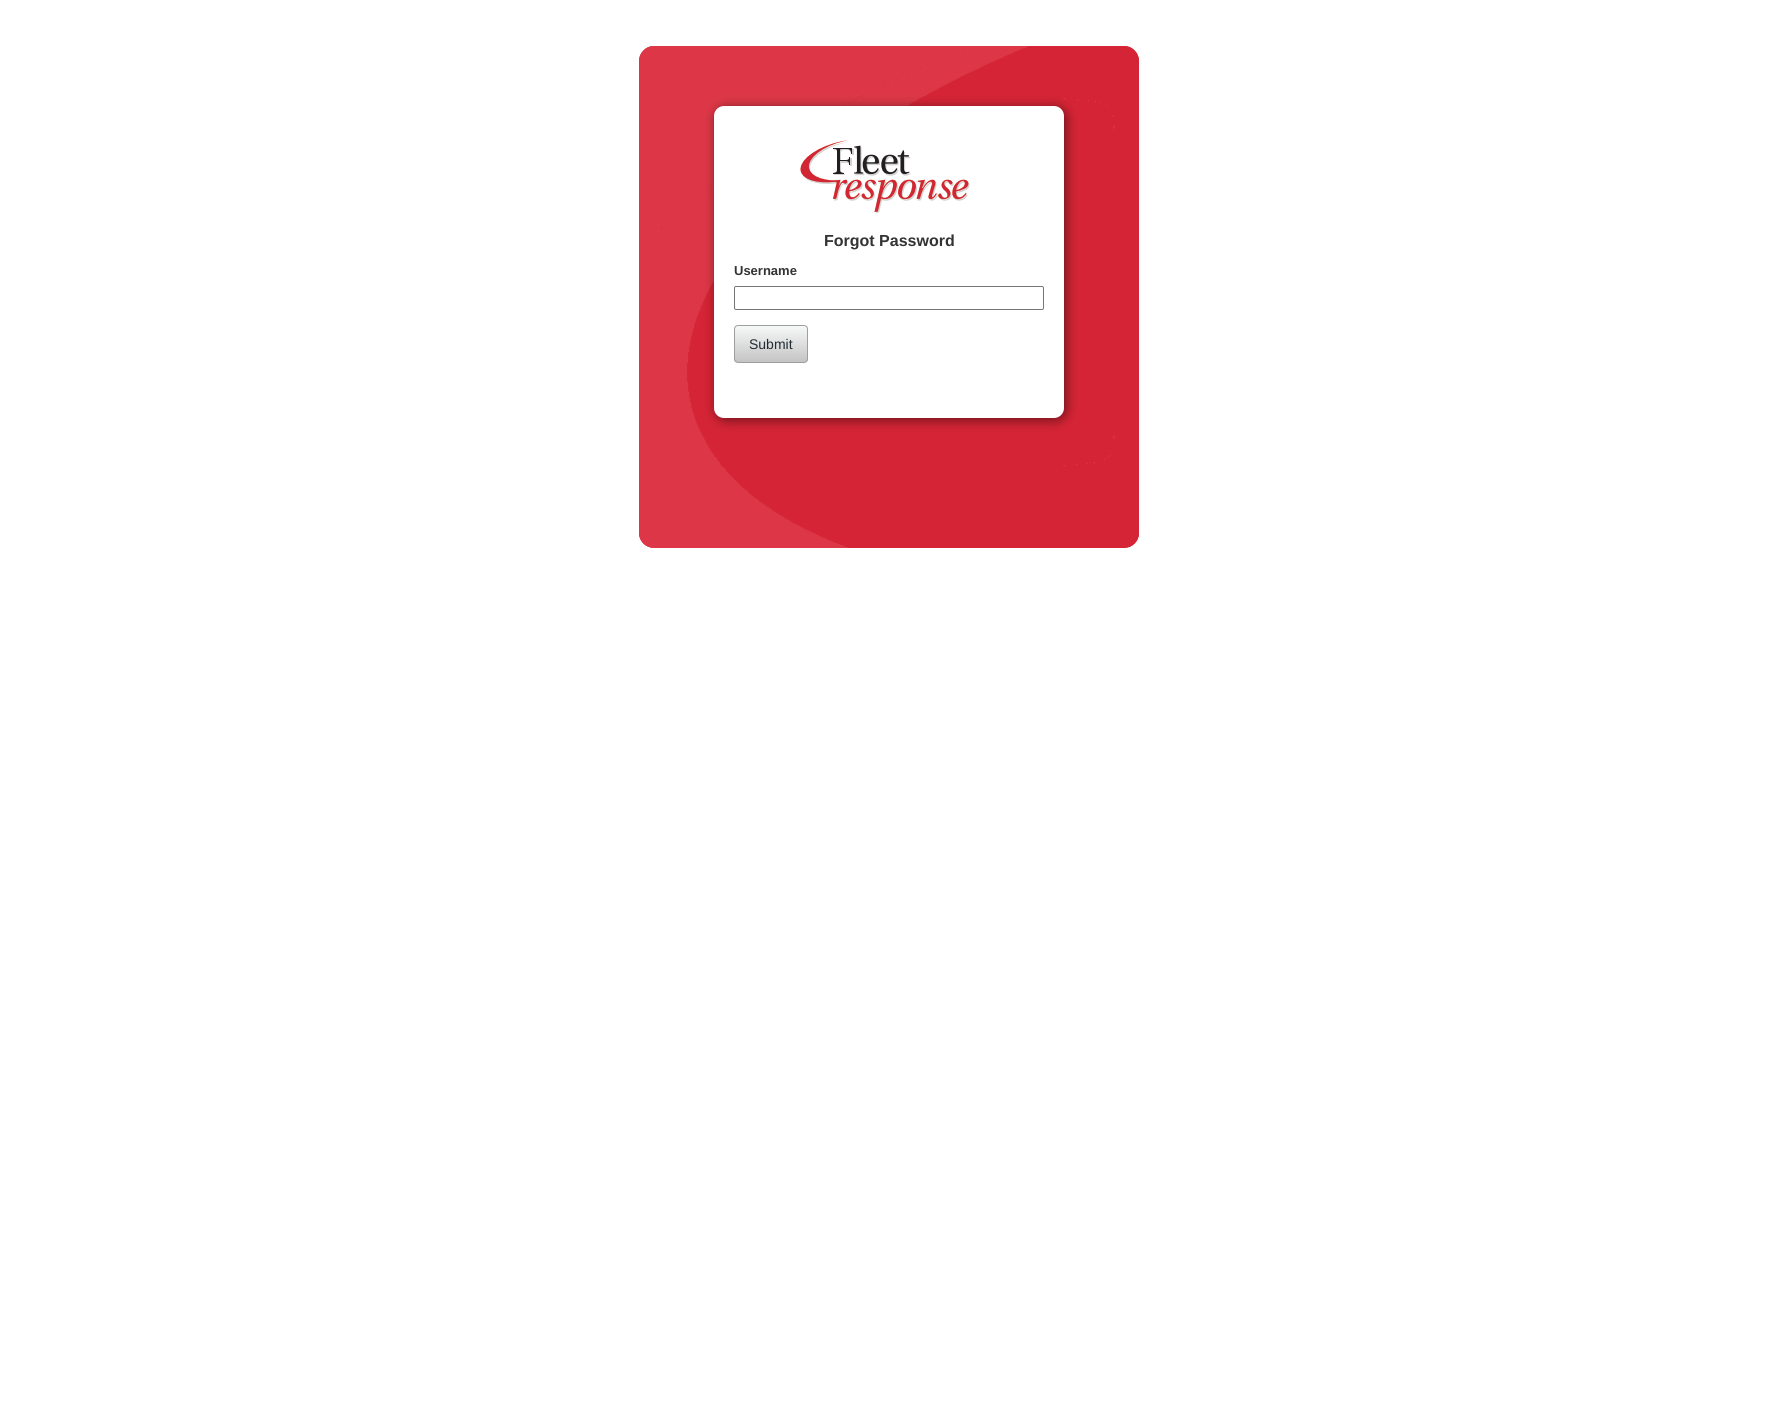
import math
import cairo

surface = cairo.ImageSurface(cairo.FORMAT_RGB24, 1778, 1427)
cr = cairo.Context(surface)
options = cairo.FontOptions()
options.set_hint_metrics(cairo.HINT_METRICS_OFF)
options.set_hint_style(cairo.HINT_STYLE_NONE)
cr.set_font_options(options)
cr.set_miter_limit(4)


def rgb(code):
    cr.set_source_rgb(*(v / 255 for v in bytes.fromhex(code[-6:])))


def rrect(x, y, w, h, r):
    cr.new_sub_path()
    for i, (u, v) in enumerate([(x + w - r, y + h - r), (x + r, y + h - r), (x + r, y + r), (x + w - r, y + r)]):
        cr.arc(u, v, r, i * math.pi / 2, (i + 1) * math.pi / 2)
    cr.close_path()


def soft_shadow(x, y, w, h, r, blur, alpha):
    cr.push_group_with_content(cairo.CONTENT_ALPHA)
    cr.set_operator(cairo.OPERATOR_SOURCE)
    for i in range(15, -16, -2):
        e = blur * i / 6
        if min(w, h) + 2 * e > 0:
            cr.set_source_rgba(0, 0, 0, alpha * math.erfc((i - 1) / 8.5) / 2)
            rrect(x - e, y - e, w + 2 * e, h + 2 * e, max(0, min(r + e + blur * .6, min(w, h) / 2 + e)))
            cr.fill()
    cr.mask(cr.pop_group())


def image(path, x, y, w, h):
    cr.save()
    cr.set_source_surface(cairo.ImageSurface.create_from_png(path), x, y)
    cr.rectangle(x, y, w, h)
    cr.fill()
    cr.restore()


rgb("#ffffff")
cr.paint()
rgb("#d23138")
rrect(639, 46, 500, 502, 15)
cr.fill()
image("img/1.png", 639, 46, 500, 502)
rgb("#000000")
soft_shadow(716, 108, 350, 312, 10, 6, 0.5)
rgb("#ffffff")
rrect(714, 106, 350, 312, 10)
cr.fill()
image("img/2.png", 800, 140, 170, 73)
rrect(734.5, 286.5, 309, 23, 1.5)
rgb("#767676")
cr.set_line_width(1)
cr.stroke()
cr.save()
rrect(734, 325, 74, 38, 4)
cr.clip()
gradient = cairo.LinearGradient(771, 326, 771, 362)
gradient.add_color_stop_rgba(0, 0.969, 0.973, 0.973, 1)
gradient.add_color_stop_rgba(1, 0.769, 0.769, 0.773, 1)
cr.set_source(gradient)
cr.rectangle(734, 326, 74, 36)
cr.fill()
cr.restore()
rrect(734.5, 325.5, 73, 37, 3.5)
rgb("#9d9ea0")
cr.stroke()
cr.select_font_face("Liberation Sans", cairo.FONT_SLANT_NORMAL, cairo.FONT_WEIGHT_BOLD)
cr.set_font_size(16)
rgb("#333333")
cr.move_to(824, 246)
cr.show_text("Forgot Password")
cr.set_font_size(13)
cr.move_to(734, 275)
cr.show_text("Username")
cr.select_font_face("Liberation Sans")
cr.set_font_size(14)
rgb("#222d32")
cr.move_to(749, 349)
cr.show_text("Submit")
surface.write_to_png("page.png")
